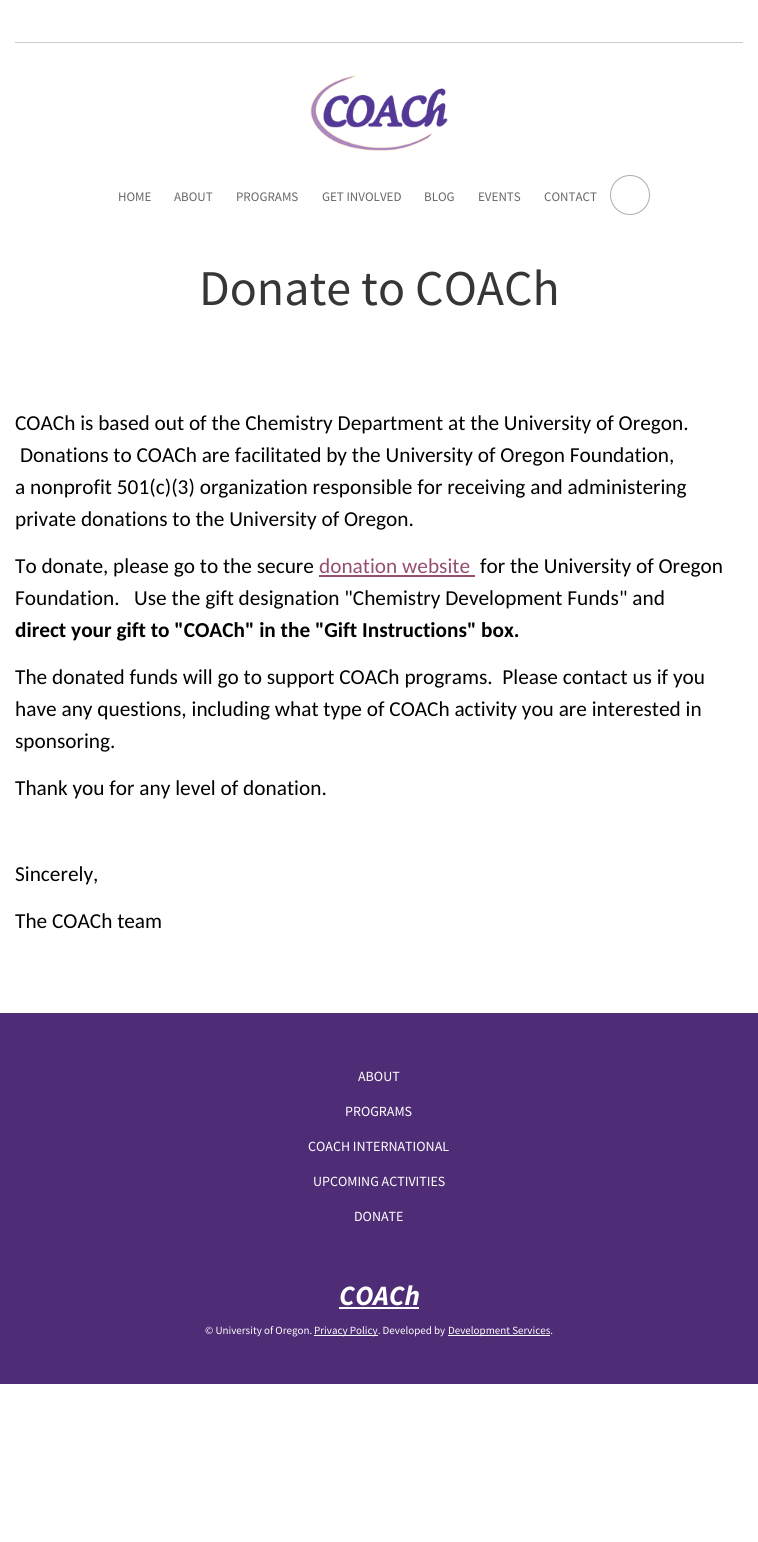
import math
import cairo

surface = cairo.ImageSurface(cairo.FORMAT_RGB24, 758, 1542)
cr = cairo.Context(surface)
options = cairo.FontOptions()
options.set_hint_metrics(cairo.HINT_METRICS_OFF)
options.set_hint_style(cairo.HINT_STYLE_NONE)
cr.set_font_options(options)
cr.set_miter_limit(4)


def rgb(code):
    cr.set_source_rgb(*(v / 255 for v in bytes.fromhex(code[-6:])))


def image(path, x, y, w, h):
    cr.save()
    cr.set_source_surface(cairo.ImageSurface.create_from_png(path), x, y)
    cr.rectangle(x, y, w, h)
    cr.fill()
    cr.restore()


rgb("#ffffff")
cr.paint()
rgb("#cdcdcd")
cr.rectangle(15, 42, 728, 1)
cr.fill()
image("img/1.png", 310, 75, 138, 76)
cr.arc(630, 195, 19.5, 0, 2 * math.pi)
rgb("#acacac")
cr.set_line_width(1)
cr.stroke()
for x, y, w, h, color in [
    (319, 575, 156, 2, "#954f72"),
    (0, 1013, 758, 371, "#4f2d76"),
    (339, 1307, 80, 2, "#ffffff"),
    (314, 1335, 64, 1, "#ffffff"),
    (448, 1335, 102, 1, "#ffffff"),
]:
    rgb(color)
    cr.rectangle(x, y, w, h)
    cr.fill()
cr.select_font_face("Source Sans Pro")
cr.set_font_size(13)
rgb("#666666")
for x, y, s in [
    (118, 201, "HOME"),
    (174, 201, "ABOUT"),
    (236, 201, "PROGRAMS"),
    (322, 201, "GET INVOLVED"),
    (424, 201, "BLOG"),
    (478, 201, "EVENTS"),
    (544, 201, "CONTACT"),
]:
    cr.move_to(x, y)
    cr.show_text(s)
cr.set_font_size(50)
rgb("#363636")
cr.move_to(199, 305)
cr.show_text("Donate to COACh")
cr.select_font_face("Carlito")
cr.set_font_size(21.3)
rgb("#000000")
for x, y, s in [
    (15, 430, "COACh is based out of the Chemistry Department at the University of Oregon."),
    (20, 462, "Donations to COACh are facilitated by the University of Oregon Foundation,"),
    (15, 494, "a nonprofit 501(c)(3) organization responsible for receiving and administering"),
    (15, 526, "private donations to the University of Oregon."),
    (15, 573, "To donate, please go to the secure"),
]:
    cr.move_to(x, y)
    cr.show_text(s)
rgb("#954f72")
cr.move_to(319, 573)
cr.show_text("donation website")
rgb("#000000")
cr.move_to(480, 573)
cr.show_text("for the University of Oregon")
cr.move_to(15, 605)
cr.show_text("Foundation.   Use the gift designation \"Chemistry Development Funds\" and")
cr.select_font_face("Carlito", cairo.FONT_SLANT_NORMAL, cairo.FONT_WEIGHT_BOLD)
cr.move_to(15, 637)
cr.show_text("direct your gift to \"COACh\" in the \"Gift Instructions\" box.")
cr.select_font_face("Carlito")
for x, y, s in [
    (15, 684, "The donated funds will go to support COACh programs.  Please contact us if you"),
    (15, 716, "have any questions, including what type of COACh activity you are interested in"),
    (15, 748, "sponsoring."),
    (15, 795, "Thank you for any level of donation."),
    (15, 881, "Sincerely,"),
    (15, 928, "The COACh team"),
]:
    cr.move_to(x, y)
    cr.show_text(s)
cr.select_font_face("Source Sans Pro")
cr.set_font_size(14)
rgb("#ffffff")
for x, y, s in [
    (358, 1081, "ABOUT"),
    (345, 1116, "PROGRAMS"),
    (308, 1151, "COACH INTERNATIONAL"),
    (313, 1186, "UPCOMING ACTIVITIES"),
    (354, 1221, "DONATE"),
]:
    cr.move_to(x, y)
    cr.show_text(s)
cr.select_font_face("Source Sans Pro", cairo.FONT_SLANT_ITALIC, cairo.FONT_WEIGHT_BOLD)
cr.set_font_size(28)
cr.move_to(339, 1305)
cr.show_text("COACh")
cr.select_font_face("Source Sans Pro")
cr.set_font_size(11)
for x, y, s in [
    (205, 1334, "© University of Oregon."),
    (314, 1334, "Privacy Policy. Developed by"),
    (448, 1334, "Development Services."),
]:
    cr.move_to(x, y)
    cr.show_text(s)
surface.write_to_png("page.png")
